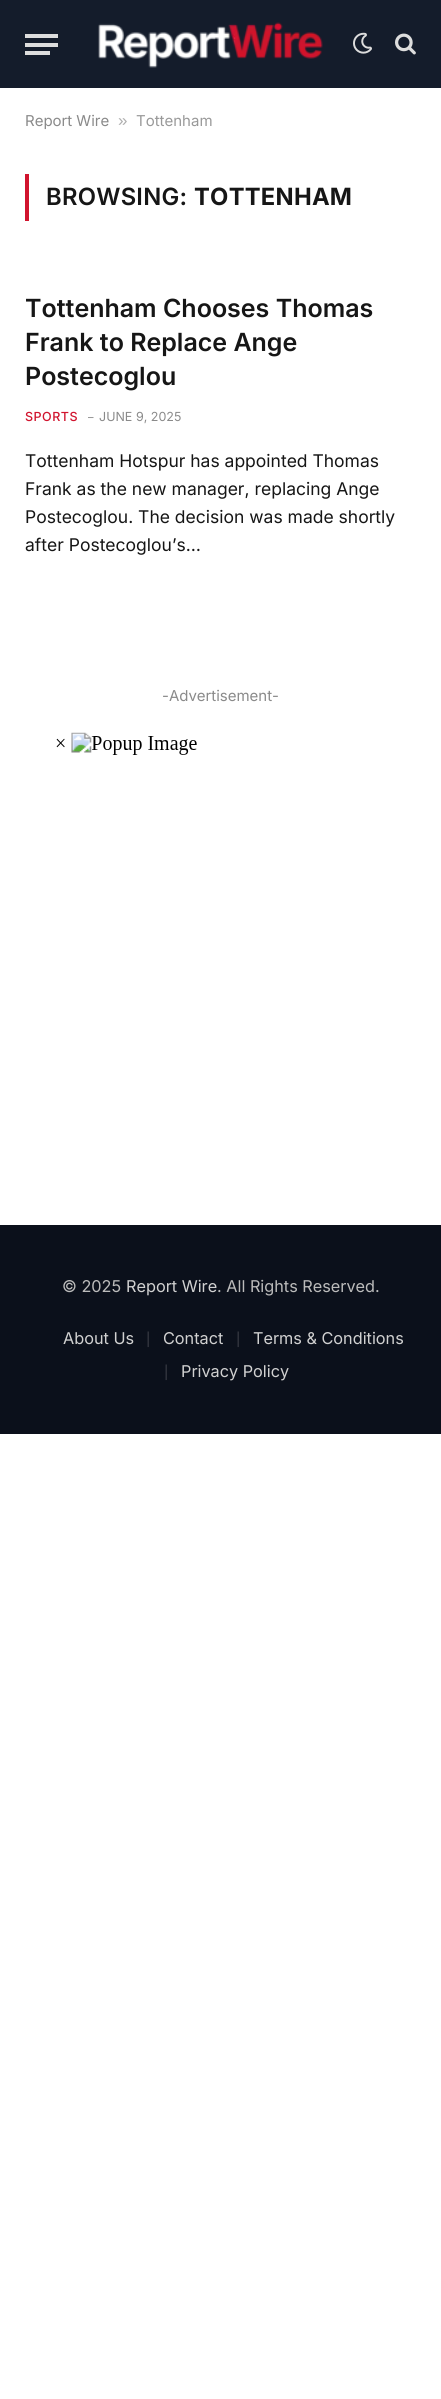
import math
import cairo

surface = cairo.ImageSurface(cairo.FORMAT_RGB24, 441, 2399)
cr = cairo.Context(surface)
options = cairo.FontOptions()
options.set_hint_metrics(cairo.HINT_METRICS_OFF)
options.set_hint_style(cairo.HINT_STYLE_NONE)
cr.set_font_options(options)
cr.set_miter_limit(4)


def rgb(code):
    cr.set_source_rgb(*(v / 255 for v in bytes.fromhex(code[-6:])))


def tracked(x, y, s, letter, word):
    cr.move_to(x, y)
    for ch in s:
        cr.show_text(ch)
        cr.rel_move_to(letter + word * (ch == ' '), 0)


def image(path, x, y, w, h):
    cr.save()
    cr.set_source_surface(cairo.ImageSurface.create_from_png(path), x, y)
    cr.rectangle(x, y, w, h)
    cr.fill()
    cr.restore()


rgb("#ffffff")
cr.paint()
for x, y, w, h, color in [
    (0, 0, 441, 88, "#141c2b"),
    (25, 51, 25, 4, "#dddddd"),
    (25, 34, 33, 4, "#dddddd"),
    (25, 43, 33, 4, "#dddddd"),
]:
    rgb(color)
    cr.rectangle(x, y, w, h)
    cr.fill()
image("img/1.png", 98, 22, 225, 46)
image("img/2.png", 353, 32, 19, 22)
image("img/3.png", 395, 33, 21, 22)
rgb("#d1142e")
cr.rectangle(25, 174, 4, 47)
cr.fill()
image("img/4.png", 56, 732, 141, 23)
rgb("#0b101b")
cr.rectangle(0, 1225, 441, 209)
cr.fill()
cr.select_font_face("Inter")
cr.set_font_size(15)
rgb("#8a8a8a")
cr.move_to(25, 126)
cr.show_text("Report Wire")
cr.select_font_face("Liberation Sans")
cr.set_font_size(17)
rgb("#adadad")
cr.move_to(118, 126)
cr.show_text("»")
cr.select_font_face("Inter")
cr.set_font_size(15)
rgb("#999999")
cr.move_to(136, 126)
cr.show_text("Tottenham")
cr.select_font_face("Inter SemiBold")
cr.set_font_size(23.75)
rgb("#161616")
tracked(46, 205, "BROWSING:", 0.25, 0)
cr.select_font_face("Inter", cairo.FONT_SLANT_NORMAL, cairo.FONT_WEIGHT_BOLD)
tracked(194, 205, "TOTTENHAM", 0.25, 0)
cr.select_font_face("Inter SemiBold")
cr.set_font_size(25)
for x, y, s in [
    (25, 317, "Tottenham Chooses Thomas"),
    (25, 351, "Frank to Replace Ange"),
    (25, 385, "Postecoglou"),
]:
    cr.move_to(x, y)
    cr.show_text(s)
cr.select_font_face("Inter Medium")
cr.set_font_size(12.5)
rgb("#d1142e")
tracked(25, 421, "SPORTS", 0.5, 0)
cr.select_font_face("Inter")
cr.set_font_size(11)
rgb("#8a8a8a")
cr.move_to(88, 421)
cr.show_text("–")
cr.set_font_size(12.5)
cr.move_to(99, 421)
cr.show_text("JUNE 9, 2025")
cr.set_font_size(17.5)
rgb("#161616")
for x, y, s in [
    (25, 467, "Tottenham Hotspur has appointed Thomas"),
    (25, 495, "Frank as the new manager, replacing Ange"),
    (25, 523, "Postecoglou. The decision was made shortly"),
    (25, 551, "after Postecoglou’s…"),
]:
    cr.move_to(x, y)
    cr.show_text(s)
cr.set_font_size(15)
rgb("#8a8a8a")
cr.move_to(162, 701)
cr.show_text("-Advertisement-")
cr.set_font_size(16.25)
rgb("#bbbbbb")
cr.move_to(62, 1292)
cr.show_text("© 2025")
rgb("#d1d1d1")
cr.move_to(126, 1292)
cr.show_text("Report Wire")
rgb("#bbbbbb")
cr.move_to(217, 1292)
cr.show_text(". All Rights Reserved.")
rgb("#d1d1d1")
cr.move_to(63, 1344)
cr.show_text("About Us")
cr.set_font_size(13)
rgb("#40434b")
cr.move_to(146, 1344)
cr.show_text("|")
cr.set_font_size(16.25)
rgb("#d1d1d1")
cr.move_to(163, 1344)
cr.show_text("Contact")
cr.set_font_size(13)
rgb("#40434b")
cr.move_to(236, 1344)
cr.show_text("|")
cr.set_font_size(16.25)
rgb("#d1d1d1")
cr.move_to(253, 1344)
cr.show_text("Terms & Conditions")
cr.set_font_size(13)
rgb("#40434b")
cr.move_to(164, 1377)
cr.show_text("|")
cr.set_font_size(16.25)
rgb("#d1d1d1")
cr.move_to(181, 1377)
cr.show_text("Privacy Policy")
surface.write_to_png("page.png")
